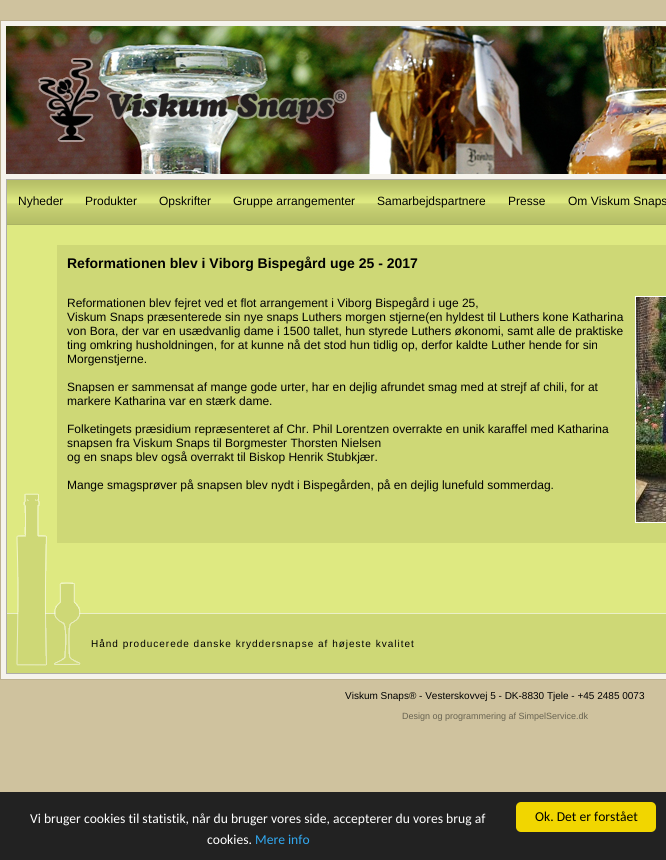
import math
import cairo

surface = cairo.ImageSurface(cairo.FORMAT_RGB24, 666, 860)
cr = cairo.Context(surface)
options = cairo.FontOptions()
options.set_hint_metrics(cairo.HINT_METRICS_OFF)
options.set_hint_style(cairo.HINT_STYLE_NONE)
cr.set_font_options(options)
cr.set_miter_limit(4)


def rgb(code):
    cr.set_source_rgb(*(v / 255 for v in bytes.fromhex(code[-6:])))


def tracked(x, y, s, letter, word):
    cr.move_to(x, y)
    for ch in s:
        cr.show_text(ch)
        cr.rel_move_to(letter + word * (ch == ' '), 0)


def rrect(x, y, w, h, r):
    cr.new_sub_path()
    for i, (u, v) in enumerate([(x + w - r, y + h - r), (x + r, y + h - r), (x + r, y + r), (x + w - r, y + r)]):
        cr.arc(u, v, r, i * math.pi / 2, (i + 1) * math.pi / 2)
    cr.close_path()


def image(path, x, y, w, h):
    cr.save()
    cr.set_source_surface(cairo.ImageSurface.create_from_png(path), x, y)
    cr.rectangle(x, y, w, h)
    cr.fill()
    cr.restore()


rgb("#cfc29e")
cr.paint()
rgb("#f5f3ec")
cr.rectangle(0.5, 20.5, 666, 659)
cr.fill_preserve()
rgb("#beb291")
cr.set_line_width(1)
cr.stroke()
image("img/1.png", 6, 26, 660, 148)
rgb("#dee981")
cr.rectangle(7, 225, 659, 388)
cr.fill()
cr.rectangle(6.5, 179.5, 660, 494)
rgb("#afada8")
cr.stroke()
image("img/2.png", 7, 180, 659, 44)
rgb("#abb363")
cr.rectangle(7, 224, 659, 1)
cr.fill()
rgb("#ced876")
cr.rectangle(57, 245, 609, 298)
cr.fill()
cr.rectangle(635.5, 296.5, 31, 226)
rgb("#ffffff")
cr.stroke()
image("img/3.png", 636, 297, 30, 225)
rgb("#ced876")
cr.rectangle(7, 614, 659, 59)
cr.fill()
rgb("#ebefc8")
cr.rectangle(7, 613, 659, 1)
cr.fill()
image("img/4.png", 16, 493, 65, 173)
rgb("#222222")
cr.rectangle(0, 792, 666, 68)
cr.fill()
rgb("#f1d600")
rrect(516, 802, 140, 30, 5)
cr.fill()
cr.select_font_face("Liberation Sans")
cr.set_font_size(12)
rgb("#000000")
for x, y, s in [
    (18, 205, "Nyheder"),
    (85, 205, "Produkter"),
    (159, 205, "Opskrifter"),
    (233, 205, "Gruppe arrangementer"),
    (377, 205, "Samarbejdspartnere"),
    (508, 205, "Presse"),
    (568, 205, "Om Viskum Snaps"),
]:
    cr.move_to(x, y)
    cr.show_text(s)
cr.select_font_face("Liberation Sans", cairo.FONT_SLANT_NORMAL, cairo.FONT_WEIGHT_BOLD)
cr.set_font_size(14)
cr.move_to(67, 268)
cr.show_text("Reformationen blev i Viborg Bispegård uge 25 - 2017")
cr.select_font_face("Liberation Sans")
cr.set_font_size(12)
for x, y, s in [
    (67, 307, "Reformationen blev fejret ved et flot arrangement i Viborg Bispegård i uge 25,"),
    (67, 321, "Viskum Snaps præsenterede sin nye snaps Luthers morgen stjerne(en hyldest til Luthers kone Katharina"),
    (67, 335, "von Bora, der var en usædvanlig dame i 1500 tallet, hun styrede Luthers økonomi, samt alle de praktiske"),
    (67, 349, "ting omkring husholdningen, for at kunne nå det stod hun tidlig op, derfor kaldte Luther hende for sin"),
    (67, 363, "Morgenstjerne."),
    (67, 391, "Snapsen er sammensat af mange gode urter, har en dejlig afrundet smag med at strejf af chili, for at"),
    (67, 405, "markere Katharina var en stærk dame."),
    (67, 433, "Folketingets præsidium repræsenteret af Chr. Phil Lorentzen overrakte en unik karaffel med Katharina"),
    (67, 447, "snapsen fra Viskum Snaps til Borgmester Thorsten Nielsen"),
    (67, 461, "og en snaps blev også overrakt til Biskop Henrik Stubkjær."),
    (67, 489, "Mange smagsprøver på snapsen blev nydt i Bispegården, på en dejlig lunefuld sommerdag."),
]:
    cr.move_to(x, y)
    cr.show_text(s)
cr.set_font_size(10)
tracked(91, 647, "Hånd producerede danske kryddersnapse af højeste kvalitet", 1, 0)
cr.move_to(345, 699)
cr.show_text("Viskum Snaps® - Vesterskovvej 5 - DK-8830 Tjele - +45 2485 0073")
cr.set_font_size(9)
rgb("#686351")
cr.move_to(402, 719)
cr.show_text("Design og programmering af SimpelService.dk")
cr.select_font_face("Carlito")
cr.set_font_size(13.6)
rgb("#ffffff")
cr.move_to(30, 823)
cr.show_text("Vi bruger cookies til statistik, når du bruger vores side, accepterer du vores brug af")
cr.move_to(207, 844)
cr.show_text("cookies.")
rgb("#31a8f0")
cr.move_to(255, 844)
cr.show_text("Mere info")
rgb("#000000")
cr.move_to(535, 821)
cr.show_text("Ok. Det er forstået")
surface.write_to_png("page.png")
